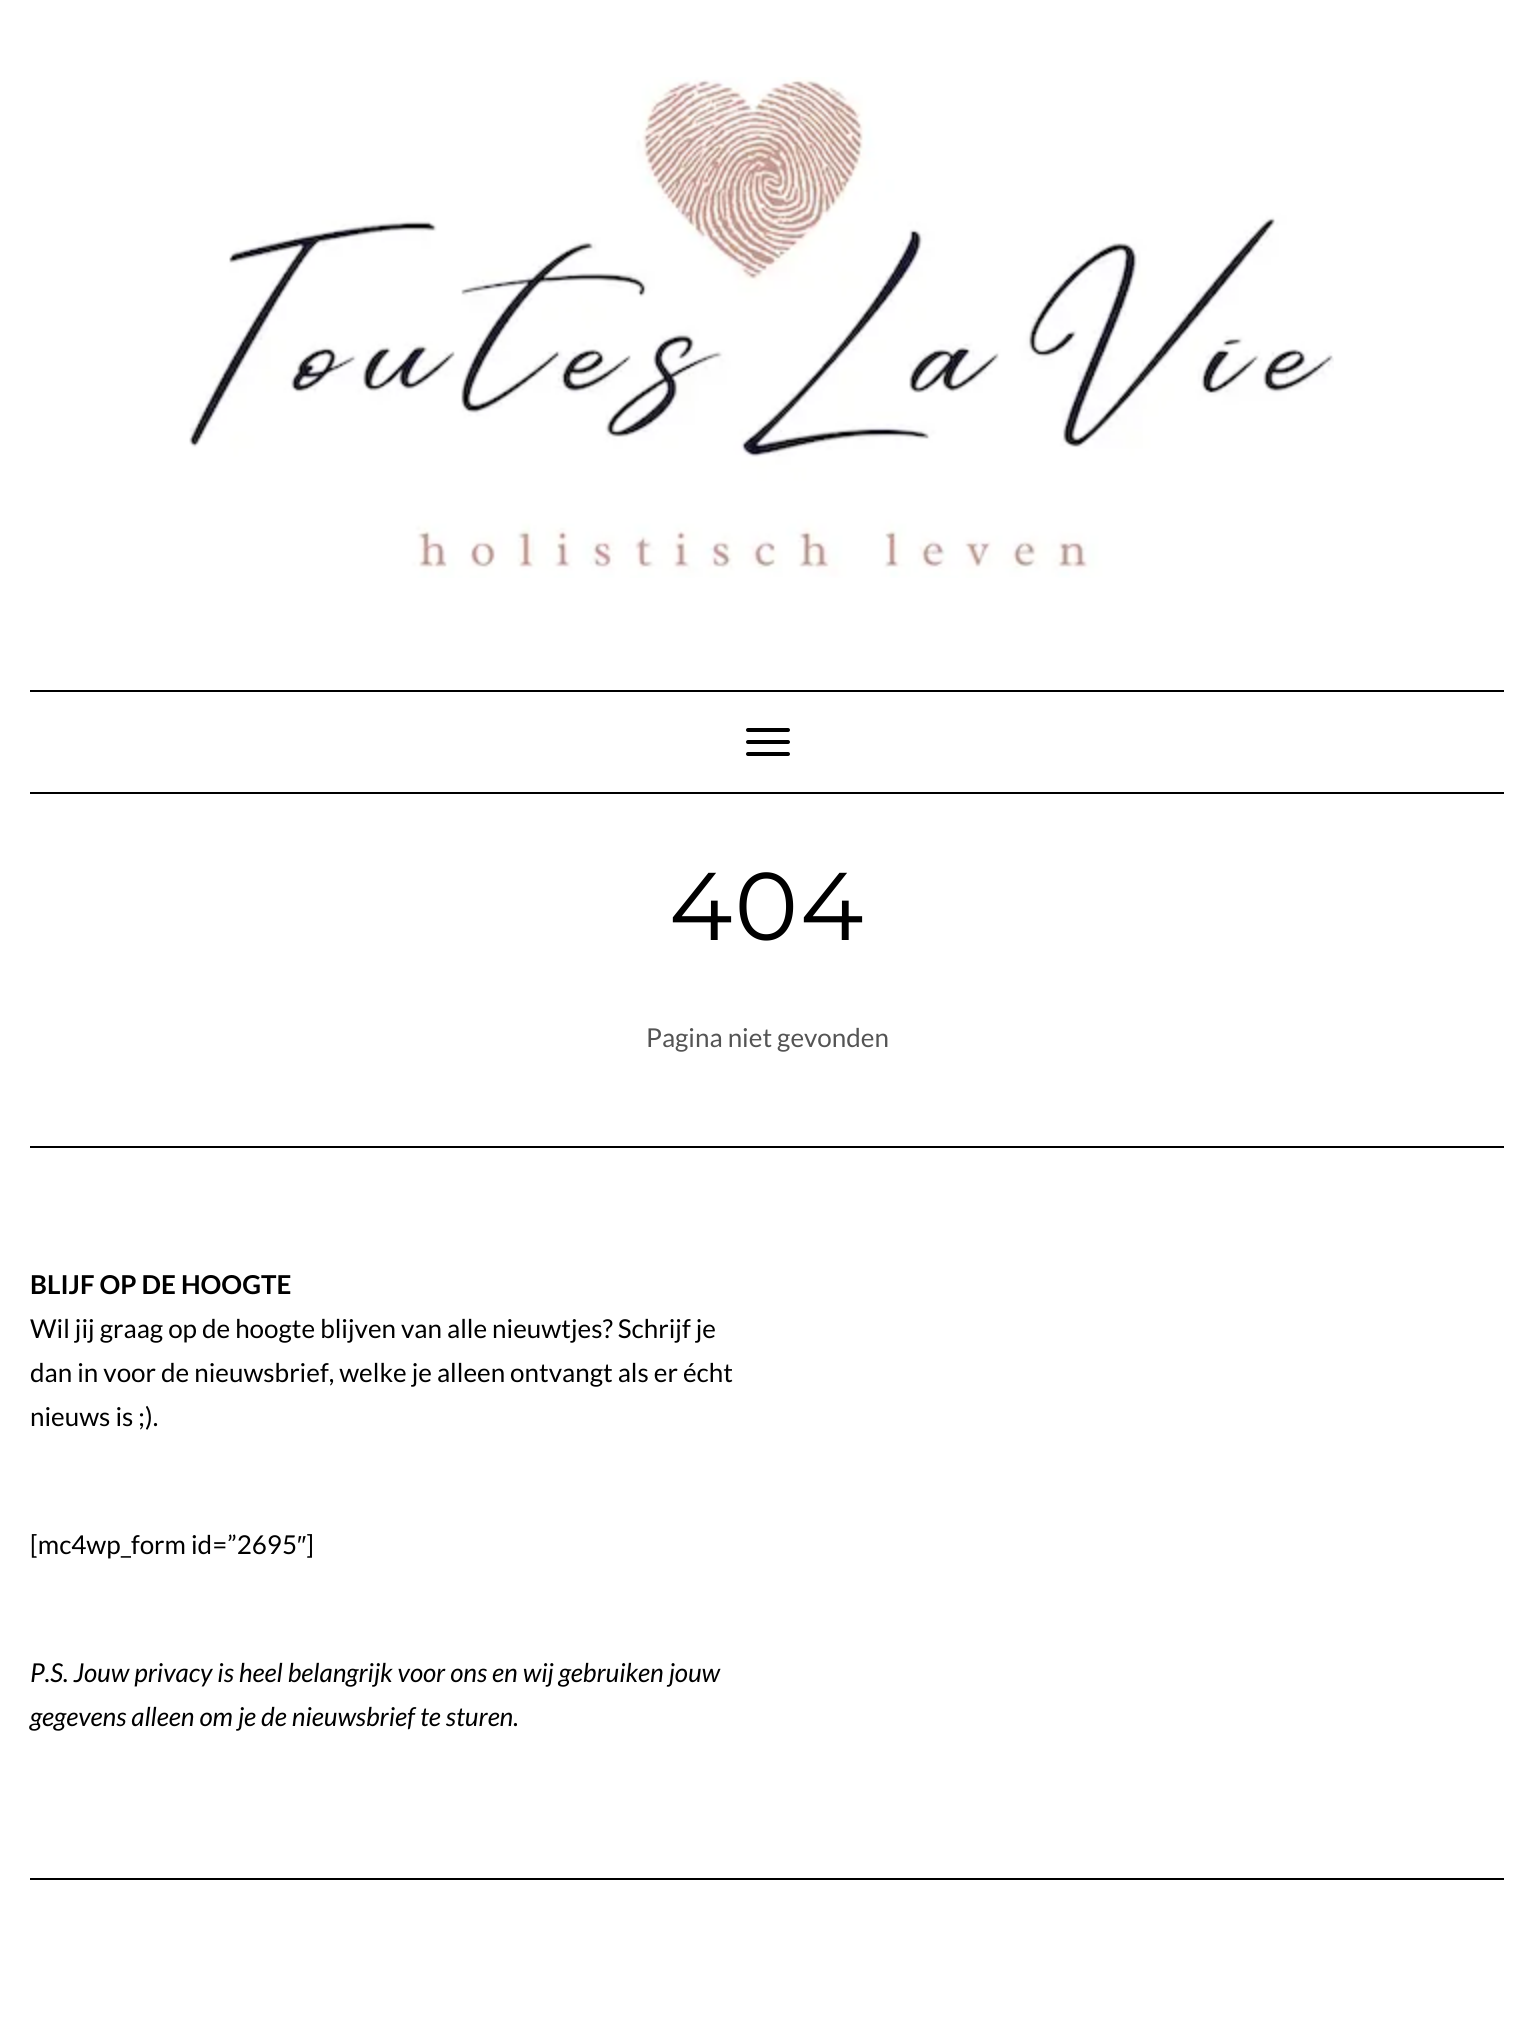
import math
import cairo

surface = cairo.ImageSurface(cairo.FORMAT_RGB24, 1533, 2020)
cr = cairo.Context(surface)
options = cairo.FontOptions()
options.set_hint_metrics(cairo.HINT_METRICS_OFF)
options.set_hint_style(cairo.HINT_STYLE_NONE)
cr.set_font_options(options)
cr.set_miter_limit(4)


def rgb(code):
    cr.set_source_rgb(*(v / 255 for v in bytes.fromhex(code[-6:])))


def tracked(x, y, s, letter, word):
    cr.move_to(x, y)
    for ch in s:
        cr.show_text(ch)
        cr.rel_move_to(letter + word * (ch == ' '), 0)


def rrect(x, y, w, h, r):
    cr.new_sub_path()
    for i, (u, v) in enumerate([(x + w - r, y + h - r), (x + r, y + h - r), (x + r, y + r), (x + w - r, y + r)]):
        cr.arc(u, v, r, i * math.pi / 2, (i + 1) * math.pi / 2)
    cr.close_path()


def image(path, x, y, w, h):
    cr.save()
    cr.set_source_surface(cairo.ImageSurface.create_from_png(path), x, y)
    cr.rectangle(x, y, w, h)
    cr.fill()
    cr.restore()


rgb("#ffffff")
cr.paint()
image("img/1.png", 189, 77, 1145, 501)
rgb("#000000")
cr.rectangle(30, 690, 1474, 2)
cr.fill()
cr.rectangle(30, 792, 1474, 2)
cr.fill()
rrect(746, 728, 44, 4, 2)
cr.fill()
rrect(746, 740, 44, 4, 2)
cr.fill()
rrect(746, 752, 44, 4, 2)
cr.fill()
cr.rectangle(30, 1146, 1474, 2)
cr.fill()
cr.rectangle(30, 1878, 1474, 2)
cr.fill()
cr.select_font_face("Montserrat")
cr.set_font_size(96)
tracked(669, 940, "404", 2, 0)
cr.select_font_face("Lato")
cr.set_font_size(26)
rgb("#545454")
cr.move_to(646, 1047)
cr.show_text("Pagina niet gevonden")
cr.select_font_face("Lato", cairo.FONT_SLANT_NORMAL, cairo.FONT_WEIGHT_BOLD)
rgb("#000000")
cr.move_to(30, 1294)
cr.show_text("BLIJF OP DE HOOGTE")
cr.select_font_face("Lato")
for x, y, s in [
    (30, 1338, "Wil jij graag op de hoogte blijven van alle nieuwtjes? Schrijf je"),
    (30, 1382, "dan in voor de nieuwsbrief, welke je alleen ontvangt als er écht"),
    (30, 1426, "nieuws is ;)."),
    (30, 1554, "[mc4wp_form id=”2695"),
]:
    cr.move_to(x, y)
    cr.show_text(s)
cr.select_font_face("Liberation Sans")
cr.move_to(297, 1554)
cr.show_text("″")
cr.select_font_face("Lato")
cr.move_to(306, 1554)
cr.show_text("]")
cr.select_font_face("Lato", cairo.FONT_SLANT_ITALIC)
cr.move_to(30, 1682)
cr.show_text("P.S. Jouw privacy is heel belangrijk voor ons en wij gebruiken jouw")
cr.move_to(30, 1726)
cr.show_text("gegevens alleen om je de nieuwsbrief te sturen.")
surface.write_to_png("page.png")
